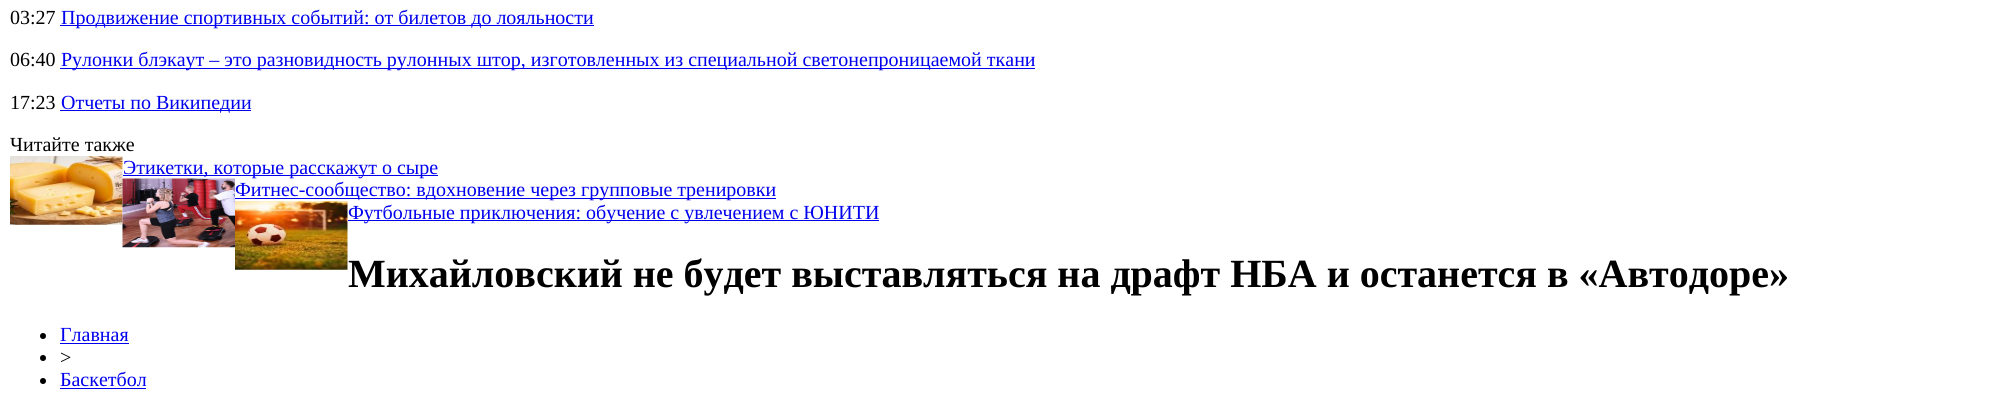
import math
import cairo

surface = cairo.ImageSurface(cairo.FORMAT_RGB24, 2002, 400)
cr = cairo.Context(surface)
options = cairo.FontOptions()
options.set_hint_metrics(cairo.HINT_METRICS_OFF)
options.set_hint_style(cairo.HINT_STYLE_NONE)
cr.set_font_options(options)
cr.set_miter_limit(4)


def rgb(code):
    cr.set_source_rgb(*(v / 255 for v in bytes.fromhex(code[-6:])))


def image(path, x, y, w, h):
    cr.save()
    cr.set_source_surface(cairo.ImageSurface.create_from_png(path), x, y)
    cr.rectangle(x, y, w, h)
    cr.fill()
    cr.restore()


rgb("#ffffff")
cr.paint()
for x, y, w, h, color in [
    (60, 25, 534, 1, "#0000ee"),
    (60, 68, 975, 1, "#0000ee"),
    (60, 110, 191, 1, "#0000ee"),
]:
    rgb(color)
    cr.rectangle(x, y, w, h)
    cr.fill()
image("img/1.png", 10, 156, 113, 69)
cr.rectangle(123, 175, 315, 1)
cr.fill()
image("img/2.png", 122, 178, 113, 70)
cr.rectangle(235, 198, 541, 1)
cr.fill()
image("img/3.png", 235, 201, 113, 69)
cr.rectangle(348, 220, 531, 1)
cr.fill()
rgb("#000000")
cr.arc(43, 336, 3, 0, 2 * math.pi)
cr.fill()
rgb("#0000ee")
cr.rectangle(60, 343, 69, 1)
cr.fill()
rgb("#000000")
cr.arc(43, 358, 3, 0, 2 * math.pi)
cr.fill()
cr.arc(43, 381, 3, 0, 2 * math.pi)
cr.fill()
rgb("#0000ee")
cr.rectangle(60, 388, 86, 1)
cr.fill()
cr.select_font_face("Liberation Serif")
cr.set_font_size(20)
rgb("#000000")
cr.move_to(10, 24)
cr.show_text("03:27")
rgb("#0000ee")
cr.move_to(61, 24)
cr.show_text("Продвижение спортивных событий: от билетов до лояльности")
rgb("#000000")
cr.move_to(10, 66)
cr.show_text("06:40")
rgb("#0000ee")
cr.move_to(61, 66)
cr.show_text("Рулонки блэкаут – это разновидность рулонных штор, изготовленных из специальной светонепроницаемой ткани")
rgb("#000000")
cr.move_to(10, 109)
cr.show_text("17:23")
rgb("#0000ee")
cr.move_to(61, 109)
cr.show_text("Отчеты по Википедии")
rgb("#000000")
cr.move_to(10, 151)
cr.show_text("Читайте также")
rgb("#0000ee")
for x, y, s in [
    (123, 174, "Этикетки, которые расскажут о сыре"),
    (235, 196, "Фитнес-сообщество: вдохновение через групповые тренировки"),
    (348, 219, "Футбольные приключения: обучение с увлечением с ЮНИТИ"),
]:
    cr.move_to(x, y)
    cr.show_text(s)
cr.select_font_face("Liberation Serif", cairo.FONT_SLANT_NORMAL, cairo.FONT_WEIGHT_BOLD)
cr.set_font_size(40)
rgb("#000000")
cr.move_to(348, 287)
cr.show_text("Михайловский не будет выставляться на драфт НБА и останется в «Автодоре»")
cr.select_font_face("Liberation Serif")
cr.set_font_size(20)
rgb("#0000ee")
cr.move_to(60, 341)
cr.show_text("Главная")
rgb("#000000")
cr.move_to(60, 364)
cr.show_text(">")
rgb("#0000ee")
cr.move_to(60, 386)
cr.show_text("Баскетбол")
surface.write_to_png("page.png")
